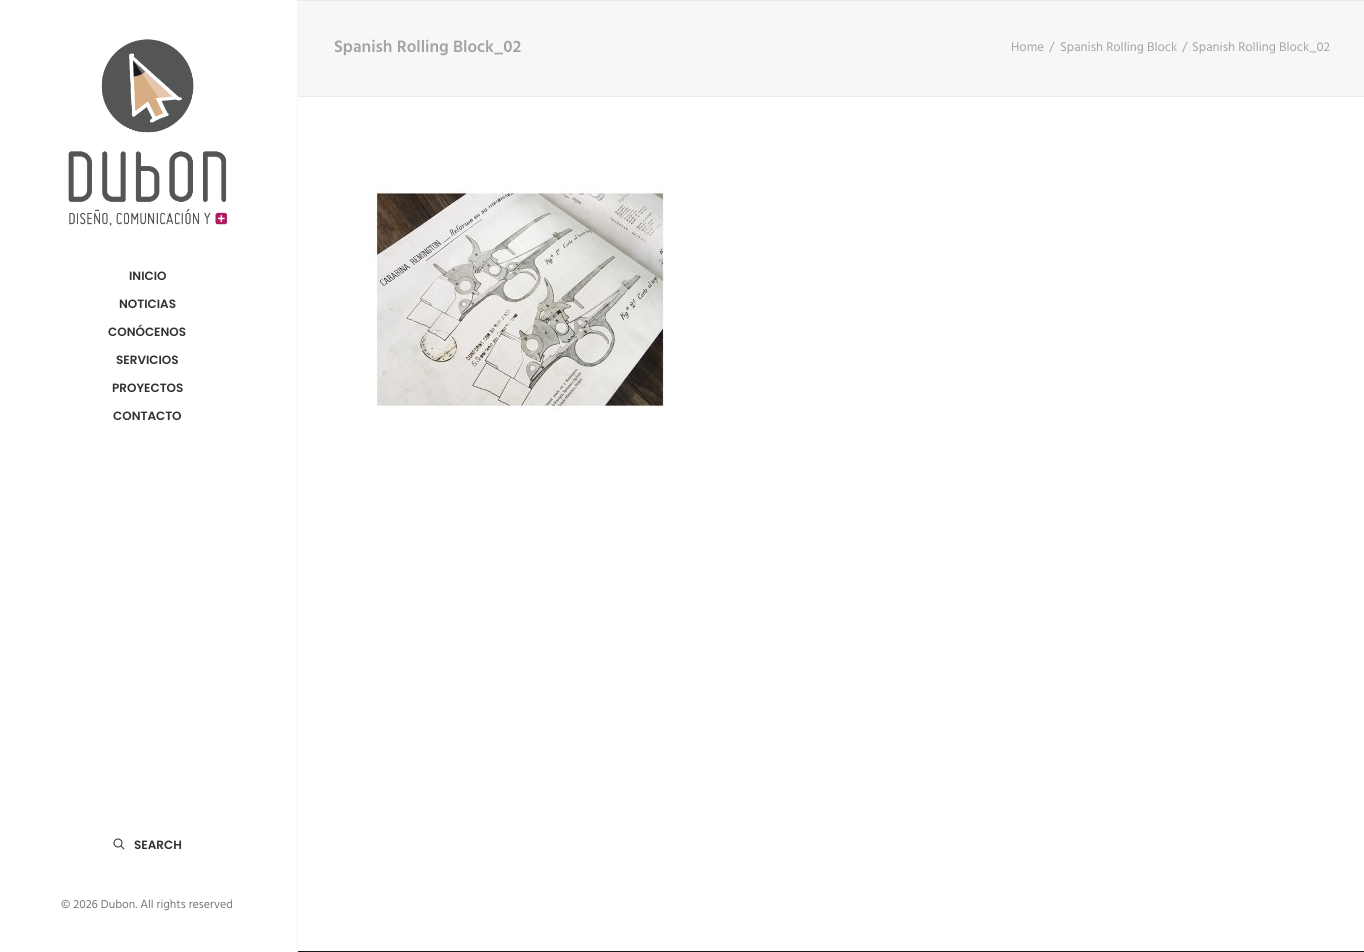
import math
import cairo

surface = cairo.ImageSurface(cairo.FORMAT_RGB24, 1364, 952)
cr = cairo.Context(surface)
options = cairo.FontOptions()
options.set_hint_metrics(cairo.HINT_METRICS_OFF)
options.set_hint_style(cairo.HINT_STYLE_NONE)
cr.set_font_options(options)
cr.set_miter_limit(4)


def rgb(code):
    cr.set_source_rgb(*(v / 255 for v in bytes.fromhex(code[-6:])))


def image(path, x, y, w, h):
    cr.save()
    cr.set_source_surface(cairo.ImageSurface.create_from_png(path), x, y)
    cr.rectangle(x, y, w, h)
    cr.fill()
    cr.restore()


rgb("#141618")
cr.paint()
for x, y, w, h, color in [
    (298, 1, 1066, 95, "#f7f7f7"),
    (298, 0, 1066, 1, "#eaeaea"),
    (298, 96, 1066, 1, "#eaeaea"),
    (298, 97, 1066, 854, "#ffffff"),
]:
    rgb(color)
    cr.rectangle(x, y, w, h)
    cr.fill()
image("img/1.png", 370, 187, 296, 224)
cr.rectangle(0, 0, 297, 952)
cr.fill()
rgb("#f5f5f5")
cr.rectangle(297, 0, 1, 952)
cr.fill()
image("img/2.png", 68, 39, 160, 187)
image("img/3.png", 113, 838, 12, 12)
cr.select_font_face("Hind SemiBold")
cr.set_font_size(17)
rgb("#a4a4a4")
cr.move_to(334, 52)
cr.show_text("Spanish Rolling Block_02")
cr.select_font_face("Hind")
cr.set_font_size(13)
for x, y, s in [
    (1011, 51, "Home"),
    (1049, 51, "/"),
    (1060, 51, "Spanish Rolling Block"),
    (1182, 51, "/"),
    (1192, 51, "Spanish Rolling Block_02"),
]:
    cr.move_to(x, y)
    cr.show_text(s)
cr.select_font_face("Poppins SemiBold")
cr.set_font_size(12)
rgb("#303133")
for x, y, s in [
    (129, 280, "INICIO"),
    (119, 308, "NOTICIAS"),
    (108, 336, "CONÓCENOS"),
    (116, 364, "SERVICIOS"),
    (112, 392, "PROYECTOS"),
    (113, 420, "CONTACTO"),
    (134, 849, "SEARCH"),
]:
    cr.move_to(x, y)
    cr.show_text(s)
cr.select_font_face("Hind")
rgb("#777777")
cr.move_to(61, 908)
cr.show_text("© 2026 Dubon. All rights reserved")
surface.write_to_png("page.png")
